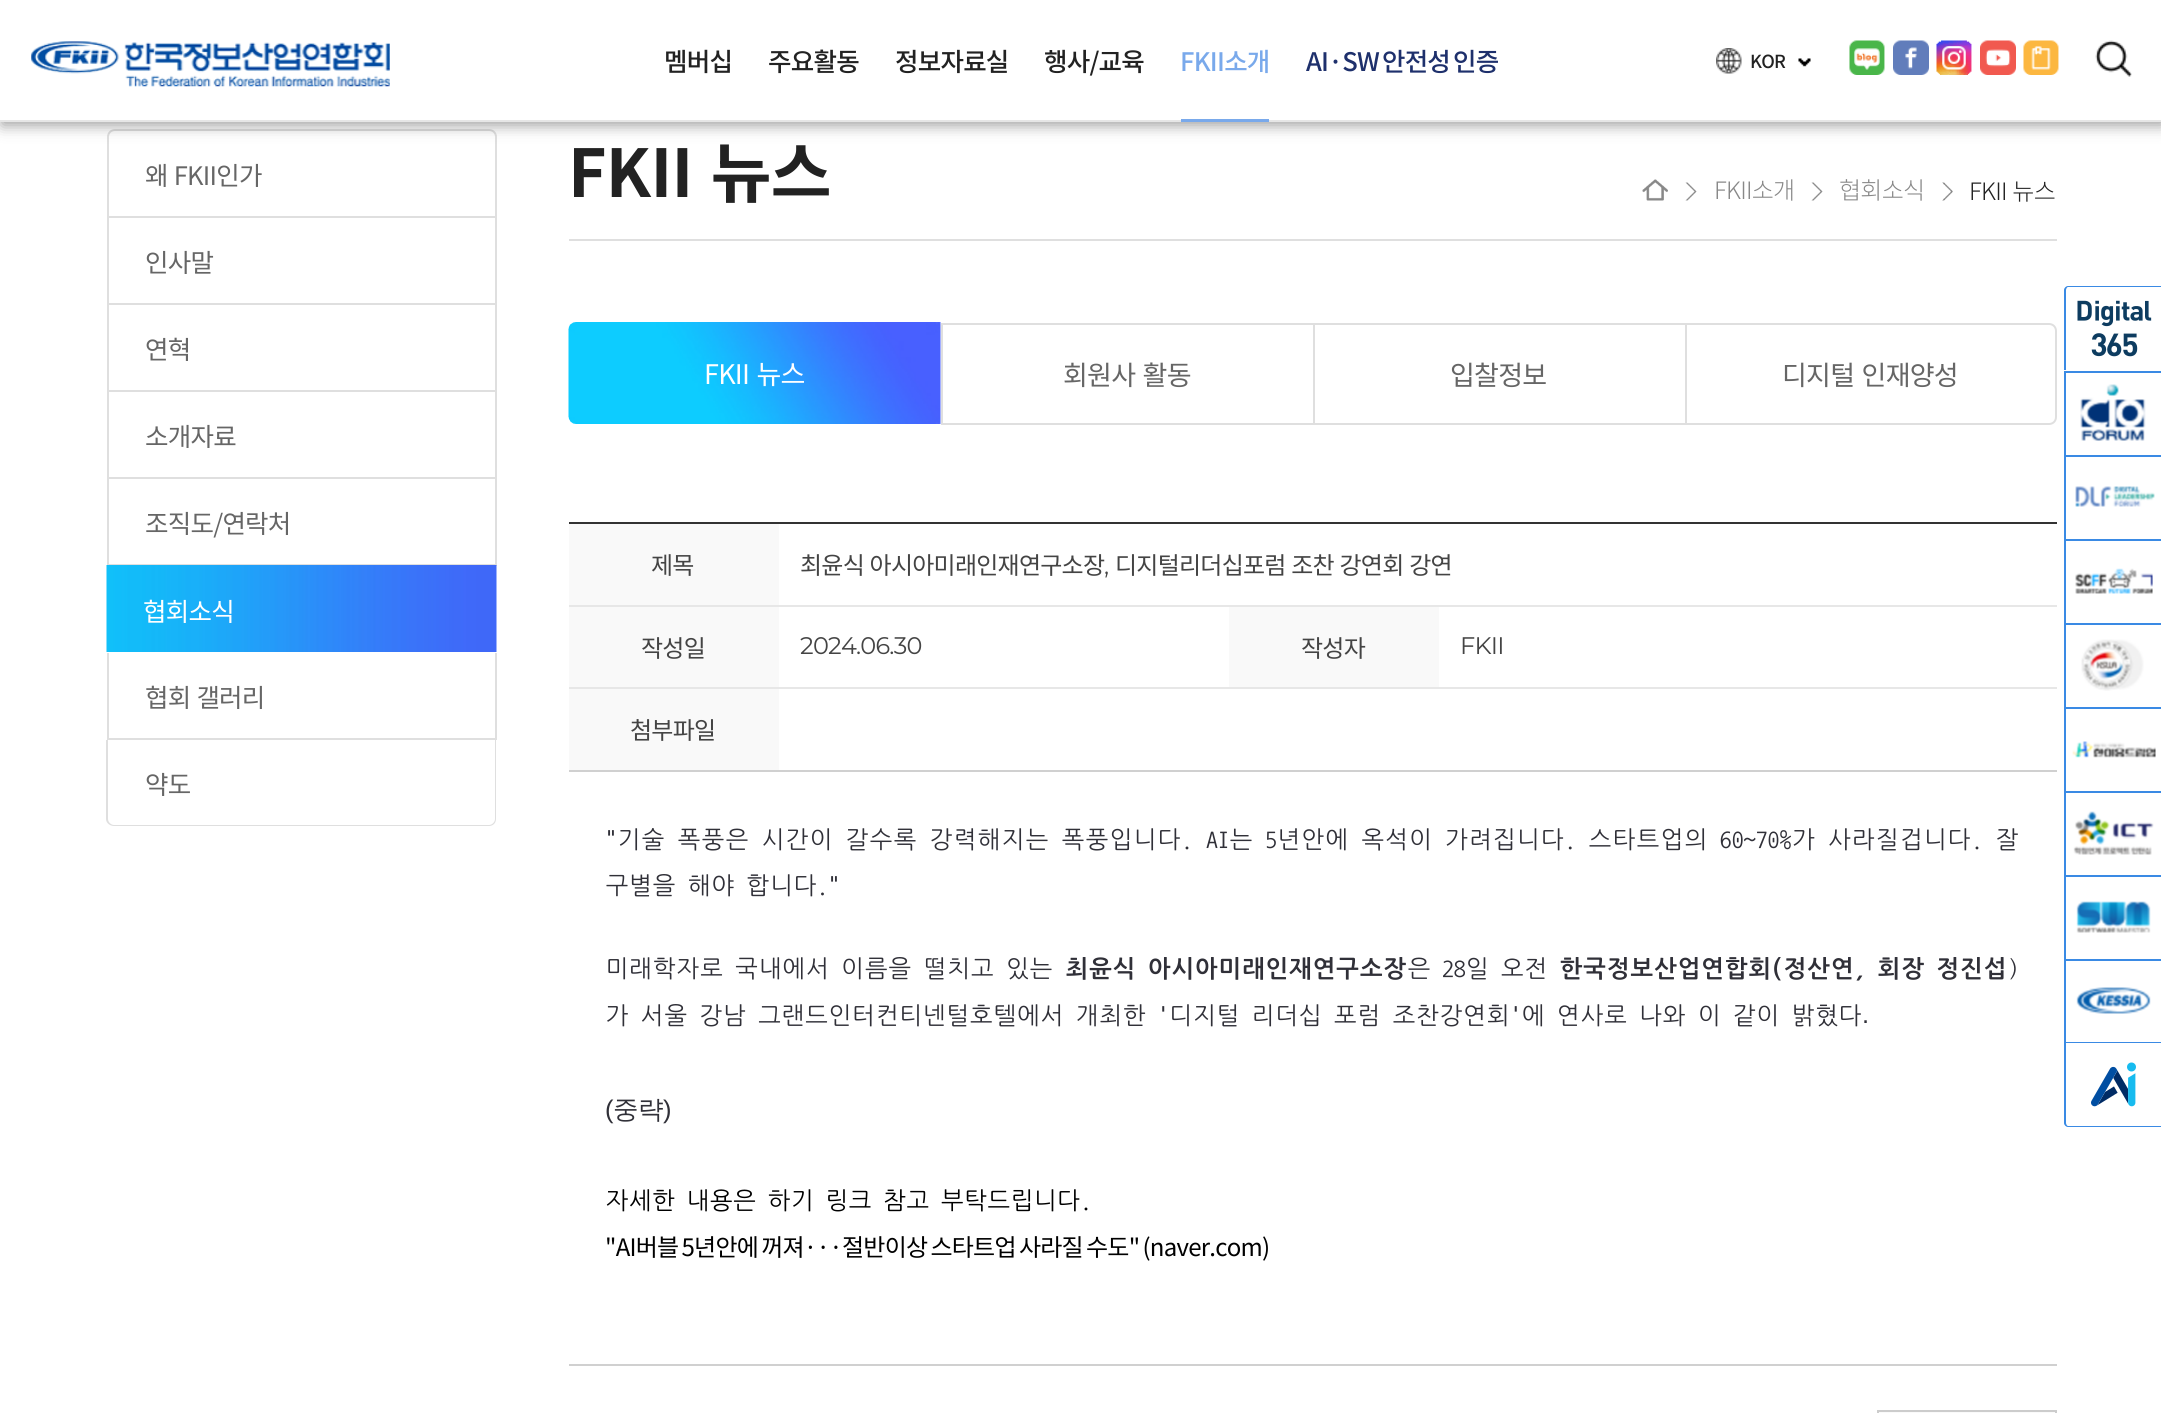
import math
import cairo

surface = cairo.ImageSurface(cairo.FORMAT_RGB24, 2161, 1413)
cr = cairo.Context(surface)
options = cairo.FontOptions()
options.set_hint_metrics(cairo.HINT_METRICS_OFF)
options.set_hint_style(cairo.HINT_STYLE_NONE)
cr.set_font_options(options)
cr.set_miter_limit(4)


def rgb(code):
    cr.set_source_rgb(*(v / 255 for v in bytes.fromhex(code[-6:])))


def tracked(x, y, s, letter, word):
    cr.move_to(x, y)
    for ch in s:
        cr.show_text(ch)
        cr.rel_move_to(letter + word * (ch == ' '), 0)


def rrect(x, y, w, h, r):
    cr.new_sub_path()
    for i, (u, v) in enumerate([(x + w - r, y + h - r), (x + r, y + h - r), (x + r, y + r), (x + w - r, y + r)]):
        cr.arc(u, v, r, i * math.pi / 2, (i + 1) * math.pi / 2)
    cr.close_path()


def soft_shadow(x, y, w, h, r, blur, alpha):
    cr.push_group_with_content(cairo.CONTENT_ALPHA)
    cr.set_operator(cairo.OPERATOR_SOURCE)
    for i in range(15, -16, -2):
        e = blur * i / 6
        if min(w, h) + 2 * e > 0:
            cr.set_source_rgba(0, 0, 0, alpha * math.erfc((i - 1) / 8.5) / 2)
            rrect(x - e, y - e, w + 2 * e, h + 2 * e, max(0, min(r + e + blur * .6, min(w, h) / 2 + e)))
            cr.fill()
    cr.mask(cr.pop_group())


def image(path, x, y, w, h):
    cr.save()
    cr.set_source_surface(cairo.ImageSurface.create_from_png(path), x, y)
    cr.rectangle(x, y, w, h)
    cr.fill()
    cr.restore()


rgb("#ffffff")
cr.paint()
cr.new_path()
cr.move_to(115, 130)
cr.line_to(489, 130)
cr.curve_to(493, 130, 496, 133, 496, 137)
cr.line_to(496, 217)
cr.line_to(108, 217)
cr.line_to(108, 137)
cr.curve_to(108, 133, 111, 130, 115, 130)
cr.close_path()
rgb("#dfdfdf")
cr.stroke()
rgb("#000000")
soft_shadow(2, 3, 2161, 122, 0, 7.5, 0.4)
rgb("#ffffff")
cr.rectangle(0, 0, 2161, 120)
cr.fill()
rgb("#e6e6e6")
cr.rectangle(0, 120, 2161, 2)
cr.fill()
image("img/1.png", 31, 41, 359, 46)
rgb("#79a9eb")
cr.rectangle(1181, 119, 88, 3)
cr.fill()
image("img/2.png", 1716, 48, 26, 26)
image("img/3.png", 1798, 58, 13, 9)
image("img/4.png", 1849, 40, 36, 35)
image("img/5.png", 1893, 40, 36, 35)
image("img/6.png", 1936, 40, 36, 35)
image("img/7.png", 1980, 40, 36, 35)
image("img/8.png", 2023, 40, 36, 35)
image("img/9.png", 2095, 40, 37, 37)
for x, y, w, h, color in [
    (495, 218, 2, 348, "#dfdfdf"),
    (107, 303, 390, 2, "#dfdfdf"),
    (107, 218, 2, 87, "#dfdfdf"),
    (107, 390, 390, 2, "#dfdfdf"),
    (107, 305, 2, 87, "#dfdfdf"),
    (107, 477, 390, 2, "#dfdfdf"),
    (107, 392, 2, 87, "#dfdfdf"),
    (107, 564, 390, 2, "#dfdfdf"),
    (107, 479, 2, 87, "#dfdfdf"),
]:
    rgb(color)
    cr.rectangle(x, y, w, h)
    cr.fill()
image("img/10.png", 106, 565, 391, 87)
for x, y, w, h, color in [
    (495, 653, 2, 87, "#dfdfdf"),
    (107, 738, 390, 2, "#dfdfdf"),
    (107, 653, 2, 87, "#dfdfdf"),
]:
    rgb(color)
    cr.rectangle(x, y, w, h)
    cr.fill()
cr.set_fill_rule(cairo.FILL_RULE_EVEN_ODD)
cr.new_path()
cr.move_to(106, 740)
cr.line_to(496, 740)
cr.line_to(496, 819)
cr.curve_to(496, 823, 493, 826, 489, 826)
cr.line_to(114, 826)
cr.curve_to(110, 826, 106, 823, 106, 819)
cr.close_path()
cr.move_to(108, 740)
cr.line_to(495, 740)
cr.line_to(495, 819)
cr.curve_to(495, 822, 492, 825, 489, 825)
cr.line_to(114, 825)
cr.curve_to(111, 825, 108, 822, 108, 819)
cr.close_path()
cr.fill()
cr.rectangle(569, 239, 1488, 2)
cr.fill()
image("img/11.png", 1642, 179, 26, 22)
image("img/12.png", 1685, 182, 12, 19)
image("img/13.png", 1811, 182, 12, 19)
image("img/14.png", 1942, 182, 11, 19)
image("img/15.png", 568, 322, 373, 102)
for x, y, w, h, color in [
    (941, 323, 744, 2, "#dfdfdf"),
    (941, 423, 744, 2, "#dfdfdf"),
    (941, 323, 2, 102, "#dfdfdf"),
    (1313, 323, 2, 102, "#dfdfdf"),
]:
    rgb(color)
    cr.rectangle(x, y, w, h)
    cr.fill()
cr.new_path()
cr.move_to(1686, 324)
cr.line_to(2049, 324)
cr.curve_to(2053, 324, 2056, 327, 2056, 331)
cr.line_to(2056, 417)
cr.curve_to(2056, 421, 2053, 424, 2049, 424)
cr.line_to(1686, 424)
cr.close_path()
cr.stroke()
for x, y, w, h, color in [
    (569, 522, 1488, 2, "#333333"),
    (569, 1364, 1488, 2, "#d0d0d0"),
    (569, 524, 210, 81, "#f9f9f9"),
    (569, 605, 1488, 2, "#e7e7e7"),
    (569, 607, 210, 80, "#f9f9f9"),
    (1229, 607, 210, 80, "#f9f9f9"),
    (569, 687, 1488, 2, "#e7e7e7"),
    (569, 689, 210, 81, "#f9f9f9"),
    (569, 770, 1488, 2, "#d0d0d0"),
]:
    rgb(color)
    cr.rectangle(x, y, w, h)
    cr.fill()
rgb("#fafafa")
cr.rectangle(1878, 1411, 178, 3)
cr.fill_preserve()
rgb("#cccccc")
cr.stroke()
rgb("#3a8ae4")
cr.new_path()
cr.move_to(2068, 286)
cr.line_to(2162, 286)
cr.line_to(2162, 370)
cr.line_to(2064, 370)
cr.line_to(2064, 290)
cr.curve_to(2064, 288, 2066, 286, 2068, 286)
cr.close_path()
cr.move_to(2068, 287)
cr.line_to(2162, 287)
cr.line_to(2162, 370)
cr.line_to(2066, 370)
cr.line_to(2066, 290)
cr.curve_to(2066, 289, 2067, 287, 2068, 287)
cr.close_path()
cr.fill()
image("img/16.png", 2077, 300, 75, 57)
cr.rectangle(2064, 371, 97, 2)
cr.fill()
cr.rectangle(2064, 371, 2, 84)
cr.fill()
image("img/17.png", 2080, 384, 66, 57)
cr.rectangle(2064, 455, 97, 2)
cr.fill()
cr.rectangle(2064, 455, 2, 84)
cr.fill()
image("img/18.png", 2075, 486, 80, 21)
cr.rectangle(2064, 539, 97, 2)
cr.fill()
cr.rectangle(2064, 539, 2, 84)
cr.fill()
image("img/19.png", 2075, 568, 78, 26)
cr.rectangle(2064, 623, 97, 2)
cr.fill()
cr.rectangle(2064, 623, 2, 84)
cr.fill()
image("img/20.png", 2081, 639, 63, 52)
cr.rectangle(2064, 707, 97, 2)
cr.fill()
cr.rectangle(2064, 707, 2, 84)
cr.fill()
image("img/21.png", 2072, 741, 84, 17)
cr.rectangle(2064, 791, 97, 2)
cr.fill()
cr.rectangle(2064, 791, 2, 84)
cr.fill()
image("img/22.png", 2073, 811, 81, 44)
cr.rectangle(2064, 875, 97, 2)
cr.fill()
cr.rectangle(2064, 875, 2, 84)
cr.fill()
image("img/23.png", 2076, 901, 75, 32)
cr.rectangle(2064, 959, 97, 2)
cr.fill()
cr.rectangle(2064, 959, 2, 84)
cr.fill()
image("img/24.png", 2076, 987, 75, 27)
cr.new_path()
cr.move_to(2064, 1042)
cr.line_to(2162, 1042)
cr.line_to(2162, 1127)
cr.line_to(2068, 1127)
cr.curve_to(2066, 1127, 2064, 1125, 2064, 1123)
cr.close_path()
cr.move_to(2066, 1043)
cr.line_to(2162, 1043)
cr.line_to(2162, 1126)
cr.line_to(2068, 1126)
cr.curve_to(2067, 1126, 2066, 1124, 2066, 1123)
cr.close_path()
cr.fill()
image("img/25.png", 2091, 1062, 45, 45)
cr.select_font_face("Noto Sans KR Medium")
cr.set_font_size(25.5)
rgb("#222222")
for x, y, s in [
    (664, 71, "멤버십"),
    (768, 71, "주요활동"),
    (895, 71, "정보자료실"),
    (1044, 71, "행사/교육"),
]:
    tracked(x, y, s, -0.75, 0)
rgb("#79a9eb")
tracked(1180, 71, "FKII소개", -0.75, 0)
rgb("#1e306c")
tracked(1306, 71, "AI·SW 안전성 인증", -0.75, -2)
cr.set_font_size(18)
rgb("#222222")
tracked(1750, 68, "KOR", -0.75, 0)
cr.select_font_face("Noto Sans KR")
cr.set_font_size(25.5)
rgb("#666666")
tracked(145, 185, "왜 FKII인가", -0.75, 1)
for x, y, s in [
    (145, 272, "인사말"),
    (145, 359, "연혁"),
    (145, 446, "소개자료"),
    (145, 533, "조직도/연락처"),
]:
    tracked(x, y, s, -0.75, 0)
rgb("#ffffff")
tracked(143, 621, "협회소식", -0.75, 0)
rgb("#666666")
tracked(145, 707, "협회 갤러리", -0.75, 1)
tracked(145, 794, "약도", -0.75, 0)
cr.select_font_face("Noto Sans KR", cairo.FONT_SLANT_NORMAL, cairo.FONT_WEIGHT_BOLD)
cr.set_font_size(66)
rgb("#222222")
tracked(568, 197, "FKII 뉴스", -0.75, 4)
cr.select_font_face("Noto Sans KR Light")
cr.set_font_size(24)
rgb("#888888")
tracked(1714, 199, "FKII소개", -0.75, 0)
tracked(1839, 199, "협회소식", -0.75, 0)
rgb("#222222")
tracked(1969, 200, "FKII 뉴스", -0.75, 1)
cr.select_font_face("Noto Sans KR")
cr.set_font_size(27)
rgb("#ffffff")
tracked(704, 384, "FKII 뉴스", -0.75, 2)
rgb("#666666")
tracked(1063, 385, "회원사 활동", -0.75, 2)
tracked(1450, 385, "입찰정보", -0.75, 0)
tracked(1782, 385, "디지털 인재양성", -0.75, 2)
cr.set_font_size(24)
rgb("#444444")
tracked(651, 574, "제목", -0.75, 0)
tracked(800, 574, "최윤식 아시아미래인재연구소장", -0.75, 1)
cr.select_font_face("Montserrat")
tracked(1104, 574, ",", -0.75, 0)
cr.select_font_face("Noto Sans KR")
tracked(1115, 574, "디지털리더십포럼 조찬 강연회 강연", -0.75, 1)
tracked(641, 657, "작성일", -0.75, 0)
cr.select_font_face("Montserrat")
tracked(800, 654, "2024.06.30", -0.75, 0)
cr.select_font_face("Noto Sans KR")
tracked(1301, 657, "작성자", -0.75, 0)
cr.select_font_face("Montserrat")
tracked(1460, 654, "FKII", -0.75, 0)
cr.select_font_face("Noto Sans KR")
tracked(630, 739, "첨부파일", -0.75, 0)
cr.select_font_face("NanumGothicCoding")
rgb("#303038")
cr.move_to(605, 847)
cr.show_text("\"기술 폭풍은 시간이 갈수록 강력해지는 폭풍입니다.")
tracked(1206, 847, "AI", -0.45, 0)
tracked(1229, 847, "는 5년안에 옥석이 가려집니다. 스타트업의 60~70%가 사라질겁니다. 잘", -0.05, 0)
tracked(605, 893, "구별을 해야 합니다.\"", -0.45, 0)
tracked(605, 976, "미래학자로 국내에서 이름을 떨치고 있는", -0.4, 0)
cr.select_font_face("NanumGothicCoding", cairo.FONT_SLANT_NORMAL, cairo.FONT_WEIGHT_BOLD)
tracked(1065, 976, "최윤식 아시아미래인재연구소장", -0.45, 0)
cr.select_font_face("NanumGothicCoding")
tracked(1407, 976, "은 28일 오전", -0.45, 0)
cr.select_font_face("NanumGothicCoding", cairo.FONT_SLANT_NORMAL, cairo.FONT_WEIGHT_BOLD)
tracked(1559, 976, "한국정보산업연합회(정산연, 회장 정진섭", -0.4, 0)
cr.select_font_face("NanumGothicCoding")
tracked(2007, 976, ")", -0.45, 0)
tracked(605, 1023, "가 서울 강남 그랜드인터컨티넨털호텔에서 개최한 '디지털 리더십 포럼 조찬강연회'에 연사로 나와 이 같이 밝혔다", -0.45, 0)
cr.select_font_face("Liberation Sans")
cr.set_font_size(25.5)
tracked(1862, 1023, ".", -0.45, 0)
tracked(605, 1118, "(", -0.45, 0)
cr.select_font_face("WenQuanYi Zen Hei Medium")
tracked(613, 1118, "중략", -0.45, 0)
cr.select_font_face("Liberation Sans")
tracked(663, 1118, ")", -0.45, 0)
cr.select_font_face("NanumGothicCoding")
cr.set_font_size(24)
rgb("#000000")
tracked(605, 1208, "자세한 내용은 하기 링크 참고 부탁드립니다", -0.75, 0)
cr.move_to(1080, 1208)
cr.show_text(".")
cr.select_font_face("Noto Sans KR")
tracked(605, 1256, "\"AI버블 5년안에 꺼져···절반이상 스타트업 사라질 수도\" (naver.com)", -0.75, -1.5)
surface.write_to_png("page.png")
